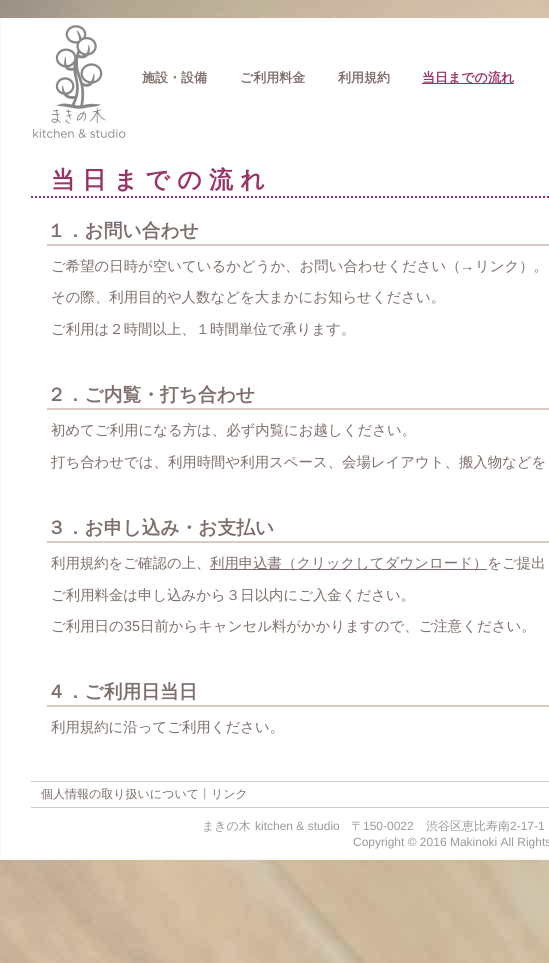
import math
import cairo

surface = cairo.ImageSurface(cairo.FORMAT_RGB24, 549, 963)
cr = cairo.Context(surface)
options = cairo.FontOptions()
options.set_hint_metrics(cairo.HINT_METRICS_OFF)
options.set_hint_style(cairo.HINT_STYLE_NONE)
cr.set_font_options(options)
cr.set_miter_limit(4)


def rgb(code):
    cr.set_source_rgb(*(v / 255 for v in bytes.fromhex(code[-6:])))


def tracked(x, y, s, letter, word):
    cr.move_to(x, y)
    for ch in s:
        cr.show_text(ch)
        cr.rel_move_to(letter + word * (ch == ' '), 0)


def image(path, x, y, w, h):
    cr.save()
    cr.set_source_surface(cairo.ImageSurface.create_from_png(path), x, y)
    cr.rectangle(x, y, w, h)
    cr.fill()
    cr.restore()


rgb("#ffffff")
cr.paint()
image("img/1.png", 0, 0, 549, 963)
rgb("#ffffff")
cr.rectangle(0.5, 18.5, 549, 841)
cr.fill_preserve()
rgb("#f7f7f7")
cr.set_line_width(1)
cr.stroke()
image("img/2.png", 33, 25, 93, 113)
rgb("#993366")
cr.rectangle(422, 83, 92, 1)
cr.fill()
cr.new_path()
cr.move_to(31, 197)
cr.line_to(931, 197)
cr.set_line_width(2)
cr.set_dash([2, 2])
cr.stroke()
for x, y, w, h, color in [
    (47, 244, 502, 2, "#dcc8c5"),
    (47, 408, 502, 2, "#dcc8c5"),
    (47, 541, 502, 2, "#dcc8c5"),
    (210, 569, 277, 1, "#7d6e6b"),
    (47, 705, 502, 2, "#dcc8c5"),
    (31, 781, 518, 1, "#cccccc"),
    (31, 807, 518, 1, "#cccccc"),
]:
    rgb(color)
    cr.rectangle(x, y, w, h)
    cr.fill()
cr.select_font_face("WenQuanYi Zen Hei", cairo.FONT_SLANT_NORMAL, cairo.FONT_WEIGHT_BOLD)
cr.set_font_size(13)
rgb("#7d6e6b")
for x, y, s in [
    (142, 82, "施設・設備"),
    (240, 82, "ご利用料金"),
    (338, 82, "利用規約"),
]:
    cr.move_to(x, y)
    cr.show_text(s)
rgb("#993366")
cr.move_to(422, 82)
cr.show_text("当日までの流れ")
cr.set_font_size(24)
tracked(51, 188, "当日までの流れ", 7.25, 0)
cr.set_font_size(18.75)
rgb("#7d6e6b")
cr.move_to(47, 237)
cr.show_text("１．お問い合わせ")
cr.select_font_face("WenQuanYi Zen Hei Medium")
cr.set_font_size(14.4)
cr.move_to(51, 271)
cr.show_text("ご希望の日時が空いているかどうか、お問い合わせください（")
cr.select_font_face("Liberation Sans")
cr.move_to(460, 271)
cr.show_text("→")
cr.select_font_face("WenQuanYi Zen Hei Medium")
for x, y, s in [
    (475, 271, "リンク）。"),
    (51, 302, "その際、利用目的や人数などを大まかにお知らせください。"),
    (51, 334, "ご利用は２時間以上、１時間単位で承ります。"),
]:
    cr.move_to(x, y)
    cr.show_text(s)
cr.select_font_face("WenQuanYi Zen Hei", cairo.FONT_SLANT_NORMAL, cairo.FONT_WEIGHT_BOLD)
cr.set_font_size(18.75)
cr.move_to(47, 401)
cr.show_text("２．ご内覧・打ち合わせ")
cr.select_font_face("WenQuanYi Zen Hei Medium")
cr.set_font_size(14.4)
cr.move_to(51, 435)
cr.show_text("初めてご利用になる方は、必ず内覧にお越しください。")
cr.move_to(51, 467)
cr.show_text("打ち合わせでは、利用時間や利用スペース、会場レイアウト、搬入物などを")
cr.select_font_face("WenQuanYi Zen Hei", cairo.FONT_SLANT_NORMAL, cairo.FONT_WEIGHT_BOLD)
cr.set_font_size(18.75)
cr.move_to(47, 534)
cr.show_text("３．お申し込み・お支払い")
cr.select_font_face("WenQuanYi Zen Hei Medium")
cr.set_font_size(14.4)
for x, y, s in [
    (51, 568, "利用規約をご確認の上、"),
    (210, 568, "利用申込書（クリックしてダウンロード）をご提出"),
    (51, 600, "ご利用料金は申し込みから３日以内にご入金ください。"),
    (51, 631, "ご利用日の"),
]:
    cr.move_to(x, y)
    cr.show_text(s)
cr.select_font_face("Liberation Sans")
cr.move_to(124, 631)
cr.show_text("35")
cr.select_font_face("WenQuanYi Zen Hei Medium")
cr.move_to(140, 631)
cr.show_text("日前からキャンセル料がかかりますので、ご注意ください。")
cr.select_font_face("WenQuanYi Zen Hei", cairo.FONT_SLANT_NORMAL, cairo.FONT_WEIGHT_BOLD)
cr.set_font_size(18.75)
cr.move_to(47, 698)
cr.show_text("４．ご利用日当日")
cr.select_font_face("WenQuanYi Zen Hei Medium")
cr.set_font_size(14.4)
cr.move_to(51, 732)
cr.show_text("利用規約に沿ってご利用ください。")
cr.set_font_size(12)
cr.move_to(41, 798)
cr.show_text("個人情報の取り扱いについて")
rgb("#999999")
cr.move_to(199, 798)
cr.show_text("丨")
rgb("#7d6e6b")
cr.move_to(211, 798)
cr.show_text("リンク")
rgb("#999999")
cr.move_to(202, 830)
cr.show_text("まきの木")
cr.select_font_face("Liberation Sans")
cr.move_to(255, 830)
cr.show_text("kitchen & studio")
cr.select_font_face("WenQuanYi Zen Hei Medium")
cr.move_to(351, 830)
cr.show_text("〒")
cr.select_font_face("Liberation Sans")
cr.move_to(363, 830)
cr.show_text("150-0022")
cr.select_font_face("WenQuanYi Zen Hei Medium")
cr.move_to(426, 830)
cr.show_text("渋谷区恵比寿南")
cr.select_font_face("Liberation Sans")
cr.move_to(510, 830)
cr.show_text("2-17-1")
cr.move_to(353, 846)
cr.show_text("Copyright © 2016 Makinoki All Rights")
surface.write_to_png("page.png")
